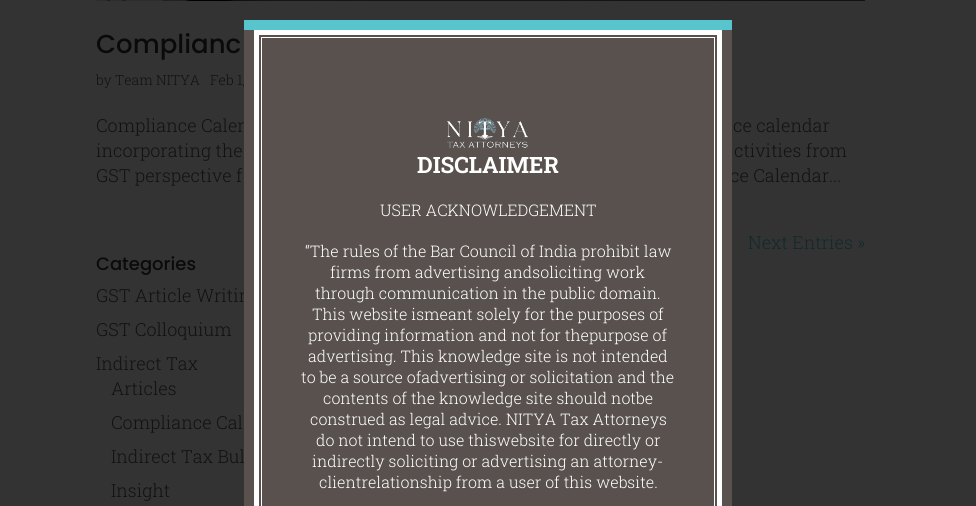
import math
import cairo

surface = cairo.ImageSurface(cairo.FORMAT_RGB24, 976, 506)
cr = cairo.Context(surface)
options = cairo.FontOptions()
options.set_hint_metrics(cairo.HINT_METRICS_OFF)
options.set_hint_style(cairo.HINT_STYLE_NONE)
cr.set_font_options(options)
cr.set_miter_limit(4)


def rgb(code):
    cr.set_source_rgb(*(v / 255 for v in bytes.fromhex(code[-6:])))


def image(path, x, y, w, h):
    cr.save()
    cr.set_source_surface(cairo.ImageSurface.create_from_png(path), x, y)
    cr.rectangle(x, y, w, h)
    cr.fill()
    cr.restore()


rgb("#333333")
cr.paint()
image("img/1.png", 96, 0, 769, 1)
rgb("#58c5ce")
cr.rectangle(244, 20, 488, 10)
cr.fill()
cr.select_font_face("Poppins Medium")
cr.set_font_size(26)
rgb("#0a0a0a")
cr.move_to(96, 53)
cr.show_text("Complianc")
cr.select_font_face("Roboto Slab Light")
cr.set_font_size(14)
rgb("#111111")
for x, y, s in [
    (96, 85, "by"),
    (115, 85, "Team NITYA"),
    (210, 85, "Feb 1,"),
]:
    cr.move_to(x, y)
    cr.show_text(s)
cr.set_font_size(18)
for x, y, s in [
    (96, 132, "Compliance Calen"),
    (733, 132, "ce calendar"),
    (96, 157, "incorporating the"),
    (734, 157, "ctivities from"),
    (96, 182, "GST perspective f"),
    (730, 182, "ce Calendar..."),
]:
    cr.move_to(x, y)
    cr.show_text(s)
rgb("#122829")
cr.move_to(748, 249)
cr.show_text("Next Entries »")
cr.select_font_face("Poppins Medium")
rgb("#0a0a0a")
cr.move_to(96, 270)
cr.show_text("Categories")
cr.select_font_face("Roboto Slab Light")
rgb("#111111")
for x, y, s in [
    (96, 302, "GST Article Writin"),
    (96, 336, "GST Colloquium"),
    (96, 370, "Indirect Tax"),
    (111, 395, "Articles"),
    (111, 429, "Compliance Cal"),
    (111, 463, "Indirect Tax Bul"),
    (111, 497, "Insight"),
]:
    cr.move_to(x, y)
    cr.show_text(s)
rgb("#58514d")
cr.rectangle(244, 30, 488, 476)
cr.fill()
cr.rectangle(256.5, 32.5, 463, 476)
rgb("#ffffff")
cr.set_line_width(5)
cr.stroke()
cr.rectangle(261.5, 37.5, 453, 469)
cr.set_line_width(1)
cr.stroke()
image("img/2.png", 447, 118, 81, 30)
cr.select_font_face("Roboto Slab", cairo.FONT_SLANT_NORMAL, cairo.FONT_WEIGHT_BOLD)
cr.set_font_size(22.5)
cr.move_to(417, 173)
cr.show_text("DISCLAIMER")
cr.select_font_face("Roboto Slab Light")
cr.set_font_size(16)
for x, y, s in [
    (380, 216, "USER ACKNOWLEDGEMENT"),
    (305, 257, "“The rules of the Bar Council of India prohibit law"),
    (330, 278, "firms from advertising andsoliciting work"),
    (315, 299, "through communication in the public domain."),
    (312, 320, "This website ismeant solely for the purposes of"),
    (308, 341, "providing information and not for thepurpose of"),
    (308, 362, "advertising. This knowledge site is not intended"),
    (301, 383, "to be a source ofadvertising or solicitation and the"),
    (323, 404, "contents of the knowledge site should notbe"),
    (310, 425, "construed as legal advice. NITYA Tax Attorneys"),
    (316, 446, "do not intend to use thiswebsite for directly or"),
    (312, 467, "indirectly soliciting or advertising an attorney-"),
    (319, 488, "clientrelationship from a user of this website."),
]:
    cr.move_to(x, y)
    cr.show_text(s)
surface.write_to_png("page.png")
